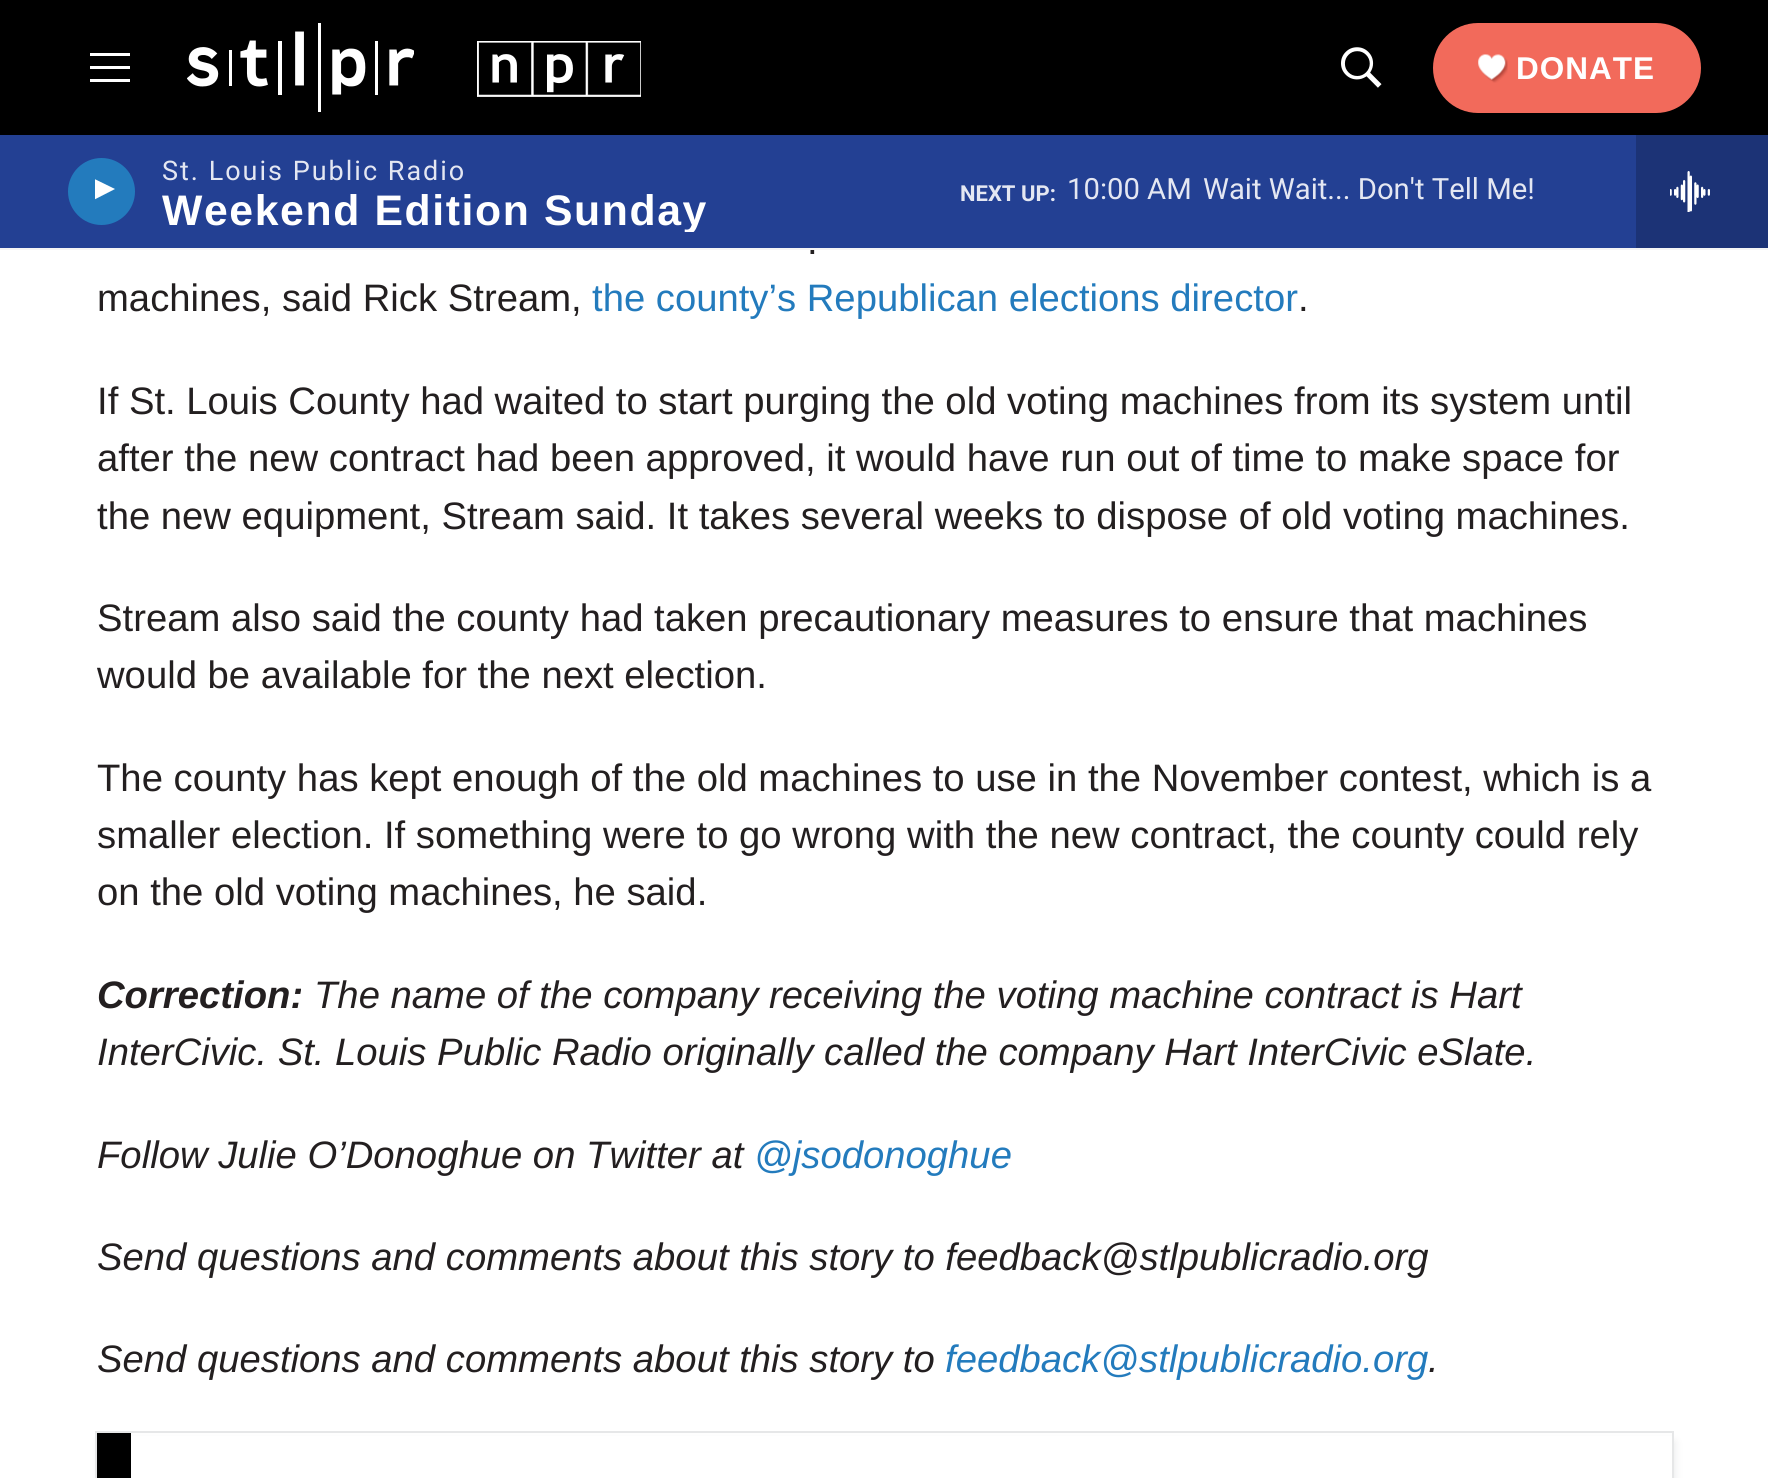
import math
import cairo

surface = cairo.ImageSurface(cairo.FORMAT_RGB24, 1768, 1478)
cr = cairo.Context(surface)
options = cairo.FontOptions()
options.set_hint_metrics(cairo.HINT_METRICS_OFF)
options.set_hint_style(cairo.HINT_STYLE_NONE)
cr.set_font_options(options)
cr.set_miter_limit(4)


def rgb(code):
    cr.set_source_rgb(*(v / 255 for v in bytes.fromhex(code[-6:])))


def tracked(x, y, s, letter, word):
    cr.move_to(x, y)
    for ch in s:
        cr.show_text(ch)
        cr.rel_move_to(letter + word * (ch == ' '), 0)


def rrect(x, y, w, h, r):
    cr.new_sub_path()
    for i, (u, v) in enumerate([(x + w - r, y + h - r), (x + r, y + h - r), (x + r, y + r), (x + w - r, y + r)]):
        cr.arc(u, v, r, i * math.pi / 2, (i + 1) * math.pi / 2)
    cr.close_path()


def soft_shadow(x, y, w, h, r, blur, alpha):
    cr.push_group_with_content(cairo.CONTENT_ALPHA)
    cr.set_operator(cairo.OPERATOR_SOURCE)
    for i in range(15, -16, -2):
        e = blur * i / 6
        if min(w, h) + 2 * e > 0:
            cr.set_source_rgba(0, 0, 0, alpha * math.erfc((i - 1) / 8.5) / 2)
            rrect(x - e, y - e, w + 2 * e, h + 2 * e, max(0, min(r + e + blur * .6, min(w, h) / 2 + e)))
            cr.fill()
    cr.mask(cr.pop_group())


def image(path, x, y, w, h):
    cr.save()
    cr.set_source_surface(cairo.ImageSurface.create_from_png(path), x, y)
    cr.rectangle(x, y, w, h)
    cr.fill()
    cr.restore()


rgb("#ffffff")
cr.paint()
rgb("#000000")
cr.rectangle(0, 0, 1768, 135)
cr.fill()
rgb("#ffffff")
cr.set_fill_rule(cairo.FILL_RULE_EVEN_ODD)
cr.new_path()
cr.move_to(90, 69)
cr.line_to(90, 66)
cr.line_to(130, 66)
cr.line_to(130, 69)
cr.close_path()
cr.move_to(90, 56)
cr.line_to(90, 53)
cr.line_to(130, 53)
cr.line_to(130, 56)
cr.close_path()
cr.move_to(90, 82)
cr.line_to(90, 79)
cr.line_to(130, 79)
cr.line_to(130, 82)
cr.close_path()
cr.fill()
image("img/1.png", 187, 23, 227, 89)
image("img/2.png", 477, 41, 164, 56)
image("img/3.png", 1341, 47, 41, 41)
rgb("#f26a5b")
rrect(1433, 23, 268, 90, 45)
cr.fill()
image("img/4.png", 1478, 54, 30, 29)
rgb("#234093")
cr.rectangle(0, 135, 1636, 113)
cr.fill()
rgb("#237bbd")
cr.arc(101.5, 191.5, 33.5, 0, 2 * math.pi)
cr.fill()
cr.save()
cr.set_fill_rule(cairo.FILL_RULE_WINDING)
cr.rectangle(95, 176, 25, 33)
cr.clip()
rgb("#ffffff")
cr.new_path()
cr.move_to(93.5, 178.5)
cr.line_to(115, 189)
cr.line_to(93.5, 200)
cr.close_path()
cr.fill()
cr.restore()
rgb("#1c3376")
cr.rectangle(1636, 135, 132, 113)
cr.fill()
image("img/5.png", 1670, 171, 40, 41)
cr.rectangle(96, 1432, 1577, 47)
rgb("#e6e7e8")
cr.stroke()
rgb("#e6e7e8")
soft_shadow(99, 1442, 1575, 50, 0, 4.5, 1)
rgb("#ffffff")
cr.rectangle(131, 1436, 1541, 42)
cr.fill()
rgb("#000000")
cr.rectangle(97, 1433, 34, 45)
cr.fill()
cr.select_font_face("Liberation Sans", cairo.FONT_SLANT_NORMAL, cairo.FONT_WEIGHT_BOLD)
cr.set_font_size(31.5)
rgb("#ffffff")
tracked(1516, 79, "DONATE", 1, 0)
cr.select_font_face("Roboto")
cr.set_font_size(27)
rgb("#e4e7f2")
tracked(162, 180, "St. Louis Public Radio", 2, 0)
cr.save()
cr.set_fill_rule(cairo.FILL_RULE_WINDING)
cr.rectangle(162, 191, 547, 41)
cr.clip()
cr.select_font_face("Liberation Sans", cairo.FONT_SLANT_NORMAL, cairo.FONT_WEIGHT_BOLD)
cr.set_font_size(42.75)
rgb("#ffffff")
tracked(162, 225, "Weekend Edition Sunday", 1.6, 0)
cr.restore()
cr.select_font_face("Roboto", cairo.FONT_SLANT_NORMAL, cairo.FONT_WEIGHT_BOLD)
cr.set_font_size(22)
cr.move_to(960, 201)
cr.show_text("NEXT UP:")
cr.select_font_face("Roboto")
cr.set_font_size(29.25)
cr.move_to(1067, 199)
cr.show_text("10:00 AM")
cr.move_to(1203, 199)
cr.show_text("Wait Wait... Don't Tell Me!")
cr.select_font_face("Liberation Sans")
cr.set_font_size(38.25)
rgb("#231f20")
cr.move_to(807, 254)
cr.show_text(".")
rgb("#f5f5f5")
cr.rectangle(0, 248, 1768, 2)
cr.fill()
rgb("#231f20")
cr.move_to(97, 311)
cr.show_text("machines, said Rick Stream,")
rgb("#237bbd")
cr.move_to(592, 311)
cr.show_text("the county’s Republican elections director")
rgb("#231f20")
for x, y, s in [
    (1298, 311, "."),
    (97, 414, "If St. Louis County had waited to start purging the old voting machines from its system until"),
    (97, 471, "after the new contract had been approved, it would have run out of time to make space for"),
    (97, 529, "the new equipment, Stream said. It takes several weeks to dispose of old voting machines."),
    (97, 631, "Stream also said the county had taken precautionary measures to ensure that machines"),
    (97, 688, "would be available for the next election."),
    (97, 791, "The county has kept enough of the old machines to use in the November contest, which is a"),
    (97, 848, "smaller election. If something were to go wrong with the new contract, the county could rely"),
    (97, 905, "on the old voting machines, he said."),
]:
    cr.move_to(x, y)
    cr.show_text(s)
cr.select_font_face("Liberation Sans", cairo.FONT_SLANT_ITALIC, cairo.FONT_WEIGHT_BOLD)
cr.move_to(97, 1008)
cr.show_text("Correction:")
cr.select_font_face("Liberation Sans", cairo.FONT_SLANT_ITALIC)
for x, y, s in [
    (314, 1008, "The name of the company receiving the voting machine contract is Hart"),
    (97, 1065, "InterCivic. St. Louis Public Radio originally called the company Hart InterCivic eSlate."),
    (97, 1168, "Follow Julie O’Donoghue on Twitter at"),
]:
    cr.move_to(x, y)
    cr.show_text(s)
rgb("#237bbd")
cr.move_to(754, 1168)
cr.show_text("@jsodonoghue")
rgb("#231f20")
cr.move_to(97, 1270)
cr.show_text("Send questions and comments about this story to feedback@stlpublicradio.org")
cr.move_to(97, 1372)
cr.show_text("Send questions and comments about this story to")
rgb("#237bbd")
cr.move_to(945, 1372)
cr.show_text("feedback@stlpublicradio.org")
rgb("#231f20")
cr.move_to(1428, 1372)
cr.show_text(".")
surface.write_to_png("page.png")
